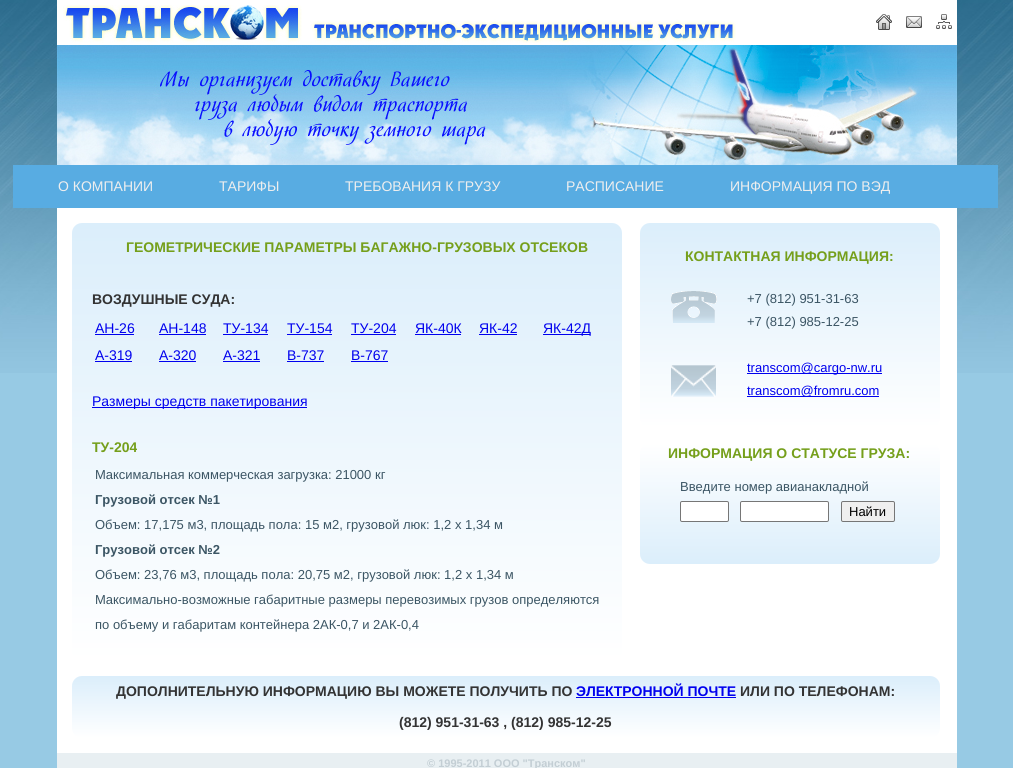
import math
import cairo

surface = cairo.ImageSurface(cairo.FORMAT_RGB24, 1013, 768)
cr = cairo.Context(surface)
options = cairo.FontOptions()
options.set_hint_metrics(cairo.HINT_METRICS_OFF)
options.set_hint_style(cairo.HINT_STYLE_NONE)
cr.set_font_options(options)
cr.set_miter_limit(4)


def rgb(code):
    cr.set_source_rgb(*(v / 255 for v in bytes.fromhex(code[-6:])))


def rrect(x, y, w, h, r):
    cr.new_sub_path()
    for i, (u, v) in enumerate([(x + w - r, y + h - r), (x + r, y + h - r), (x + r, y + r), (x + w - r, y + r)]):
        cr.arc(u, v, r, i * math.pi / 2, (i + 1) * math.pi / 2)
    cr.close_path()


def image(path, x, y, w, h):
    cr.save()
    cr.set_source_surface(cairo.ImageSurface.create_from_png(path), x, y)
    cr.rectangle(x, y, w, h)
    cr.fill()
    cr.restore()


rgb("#97cae4")
cr.paint()
image("img/1.png", 0, 0, 1013, 373)
rgb("#ffffff")
cr.rectangle(57, 0, 900, 753)
cr.fill()
image("img/2.png", 63, 5, 673, 38)
image("img/3.png", 876, 14, 16, 16)
image("img/4.png", 906, 16, 16, 12)
image("img/5.png", 936, 14, 16, 15)
image("img/6.png", 57, 45, 900, 120)
rgb("#58ace2")
cr.rectangle(13, 165, 985, 43)
cr.fill()
gradient = cairo.LinearGradient(72, 223, 72, 661)
gradient.add_color_stop_rgba(0, 0.859, 0.933, 0.984, 1)
gradient.add_color_stop_rgba(1, 1, 1, 1, 1)
cr.set_source(gradient)
rrect(72, 223, 550, 438, 10)
cr.fill()
for x, y, w, h, color in [
    (95, 334, 39, 1, "#0000ee"),
    (159, 334, 47, 1, "#0000ee"),
    (223, 334, 45, 1, "#0000ee"),
    (287, 334, 45, 1, "#0000ee"),
    (351, 334, 45, 1, "#0000ee"),
    (415, 334, 46, 1, "#0000ee"),
    (479, 334, 38, 1, "#0000ee"),
    (543, 334, 47, 1, "#0000ee"),
    (95, 361, 37, 1, "#0000ee"),
    (159, 361, 37, 1, "#0000ee"),
    (223, 361, 37, 1, "#0000ee"),
    (287, 361, 37, 1, "#0000ee"),
    (351, 361, 37, 1, "#0000ee"),
    (92, 407, 215, 1, "#0000ee"),
]:
    rgb(color)
    cr.rectangle(x, y, w, h)
    cr.fill()
gradient = cairo.LinearGradient(640, 223, 640, 428)
gradient.add_color_stop_rgba(0, 0.859, 0.933, 0.984, 1)
gradient.add_color_stop_rgba(1, 1, 1, 1, 1)
cr.set_source(gradient)
rrect(640, 223, 300, 205, 10)
cr.fill()
image("img/7.png", 671, 291, 46, 32)
image("img/8.png", 671, 365, 45, 32)
rgb("#0000ee")
cr.rectangle(747, 373, 135, 1)
cr.fill()
cr.rectangle(747, 396, 132, 1)
cr.fill()
gradient = cairo.LinearGradient(640, 443, 640, 564)
gradient.add_color_stop_rgba(0, 1, 1, 1, 1)
gradient.add_color_stop_rgba(1, 0.859, 0.933, 0.984, 1)
cr.set_source(gradient)
rrect(640, 443, 300, 121, 10)
cr.fill()
rgb("#ffffff")
rrect(680.5, 501.5, 48, 20, 1.5)
cr.fill_preserve()
rgb("#767676")
cr.set_line_width(1)
cr.stroke()
rgb("#ffffff")
rrect(740.5, 501.5, 88, 20, 1.5)
cr.fill_preserve()
rgb("#767676")
cr.stroke()
rgb("#efefef")
rrect(841.5, 501.5, 53, 20, 1.5)
cr.fill_preserve()
rgb("#767676")
cr.stroke()
gradient = cairo.LinearGradient(72, 676, 72, 738)
gradient.add_color_stop_rgba(0, 0.859, 0.933, 0.984, 1)
gradient.add_color_stop_rgba(1, 1, 1, 1, 1)
cr.set_source(gradient)
rrect(72, 676, 868, 62, 10)
cr.fill()
rgb("#0000ee")
cr.rectangle(576, 697, 160, 1)
cr.fill()
rgb("#e8eff2")
cr.rectangle(57, 753, 900, 15)
cr.fill()
cr.select_font_face("Liberation Sans")
cr.set_font_size(14)
rgb("#eeeeee")
for x, y, s in [
    (58, 191, "О КОМПАНИИ"),
    (219, 191, "ТАРИФЫ"),
    (345, 191, "ТРЕБОВАНИЯ К ГРУЗУ"),
    (566, 191, "PAСПИСАНИЕ"),
    (730, 191, "ИНФОРМАЦИЯ ПО ВЭД"),
]:
    cr.move_to(x, y)
    cr.show_text(s)
cr.select_font_face("Liberation Sans", cairo.FONT_SLANT_NORMAL, cairo.FONT_WEIGHT_BOLD)
rgb("#759f1b")
cr.move_to(126, 252)
cr.show_text("ГЕОМЕТРИЧЕСКИЕ ПАРАМЕТРЫ БАГАЖНО-ГРУЗОВЫХ ОТСЕКОВ")
rgb("#333333")
cr.move_to(92, 304)
cr.show_text("ВОЗДУШНЫЕ СУДА:")
cr.select_font_face("Liberation Sans")
rgb("#0000ee")
for x, y, s in [
    (95, 333, "АН-26"),
    (159, 333, "АН-148"),
    (223, 333, "ТУ-134"),
    (287, 333, "ТУ-154"),
    (351, 333, "ТУ-204"),
    (415, 333, "ЯК-40К"),
    (479, 333, "ЯК-42"),
    (543, 333, "ЯК-42Д"),
    (95, 360, "A-319"),
    (159, 360, "A-320"),
    (223, 360, "A-321"),
    (287, 360, "B-737"),
    (351, 360, "B-767"),
    (92, 406, "Размеры средств пакетирования"),
]:
    cr.move_to(x, y)
    cr.show_text(s)
cr.select_font_face("Liberation Sans", cairo.FONT_SLANT_NORMAL, cairo.FONT_WEIGHT_BOLD)
rgb("#759f1b")
cr.move_to(92, 452)
cr.show_text("ТУ-204")
cr.select_font_face("Liberation Sans")
cr.set_font_size(13)
rgb("#3b5564")
cr.move_to(95, 479)
cr.show_text("Максимальная коммерческая загрузка: 21000 кг")
cr.select_font_face("Liberation Sans", cairo.FONT_SLANT_NORMAL, cairo.FONT_WEIGHT_BOLD)
cr.move_to(95, 504)
cr.show_text("Грузовой отсек №1")
cr.select_font_face("Liberation Sans")
cr.move_to(95, 529)
cr.show_text("Объем: 17,175 м3, площадь пола: 15 м2, грузовой люк: 1,2 x 1,34 м")
cr.select_font_face("Liberation Sans", cairo.FONT_SLANT_NORMAL, cairo.FONT_WEIGHT_BOLD)
cr.move_to(95, 554)
cr.show_text("Грузовой отсек №2")
cr.select_font_face("Liberation Sans")
for x, y, s in [
    (95, 579, "Объем: 23,76 м3, площадь пола: 20,75 м2, грузовой люк: 1,2 x 1,34 м"),
    (95, 604, "Максимально-возможные габаритные размеры перевозимых грузов определяются"),
    (95, 629, "по объему и габаритам контейнера 2АК-0,7 и 2АК-0,4"),
]:
    cr.move_to(x, y)
    cr.show_text(s)
cr.select_font_face("Liberation Sans", cairo.FONT_SLANT_NORMAL, cairo.FONT_WEIGHT_BOLD)
cr.set_font_size(14)
rgb("#759f1b")
cr.move_to(685, 261)
cr.show_text("КОНТАКТНАЯ ИНФОРМАЦИЯ:")
cr.select_font_face("Liberation Sans")
cr.set_font_size(13)
rgb("#3b5564")
cr.move_to(747, 303)
cr.show_text("+7 (812) 951-31-63")
cr.move_to(747, 326)
cr.show_text("+7 (812) 985-12-25")
rgb("#0000ee")
cr.move_to(747, 372)
cr.show_text("transcom@cargo-nw.ru")
cr.move_to(747, 395)
cr.show_text("transcom@fromru.com")
cr.select_font_face("Liberation Sans", cairo.FONT_SLANT_NORMAL, cairo.FONT_WEIGHT_BOLD)
cr.set_font_size(14)
rgb("#759f1b")
cr.move_to(668, 458)
cr.show_text("ИНФОРМАЦИЯ О СТАТУСЕ ГРУЗА:")
cr.select_font_face("Liberation Sans")
cr.set_font_size(13)
rgb("#3b5564")
cr.move_to(680, 491)
cr.show_text("Введите номер авианакладной")
rgb("#000000")
cr.move_to(849, 516)
cr.show_text("Найти")
cr.select_font_face("Liberation Sans", cairo.FONT_SLANT_NORMAL, cairo.FONT_WEIGHT_BOLD)
cr.set_font_size(14)
rgb("#333333")
cr.move_to(116, 696)
cr.show_text("ДОПОЛНИТЕЛЬНУЮ ИНФОРМАЦИЮ ВЫ МОЖЕТЕ ПОЛУЧИТЬ ПО")
rgb("#0000ee")
cr.move_to(576, 696)
cr.show_text("ЭЛЕКТРОННОЙ ПОЧТЕ")
rgb("#333333")
cr.move_to(740, 696)
cr.show_text("ИЛИ ПО ТЕЛЕФОНАМ:")
cr.move_to(399, 727)
cr.show_text("(812) 951-31-63 , (812) 985-12-25")
cr.set_font_size(11)
rgb("#c3ced4")
cr.move_to(427, 767)
cr.show_text("© 1995-2011 ООО \"Транском\"")
surface.write_to_png("page.png")
